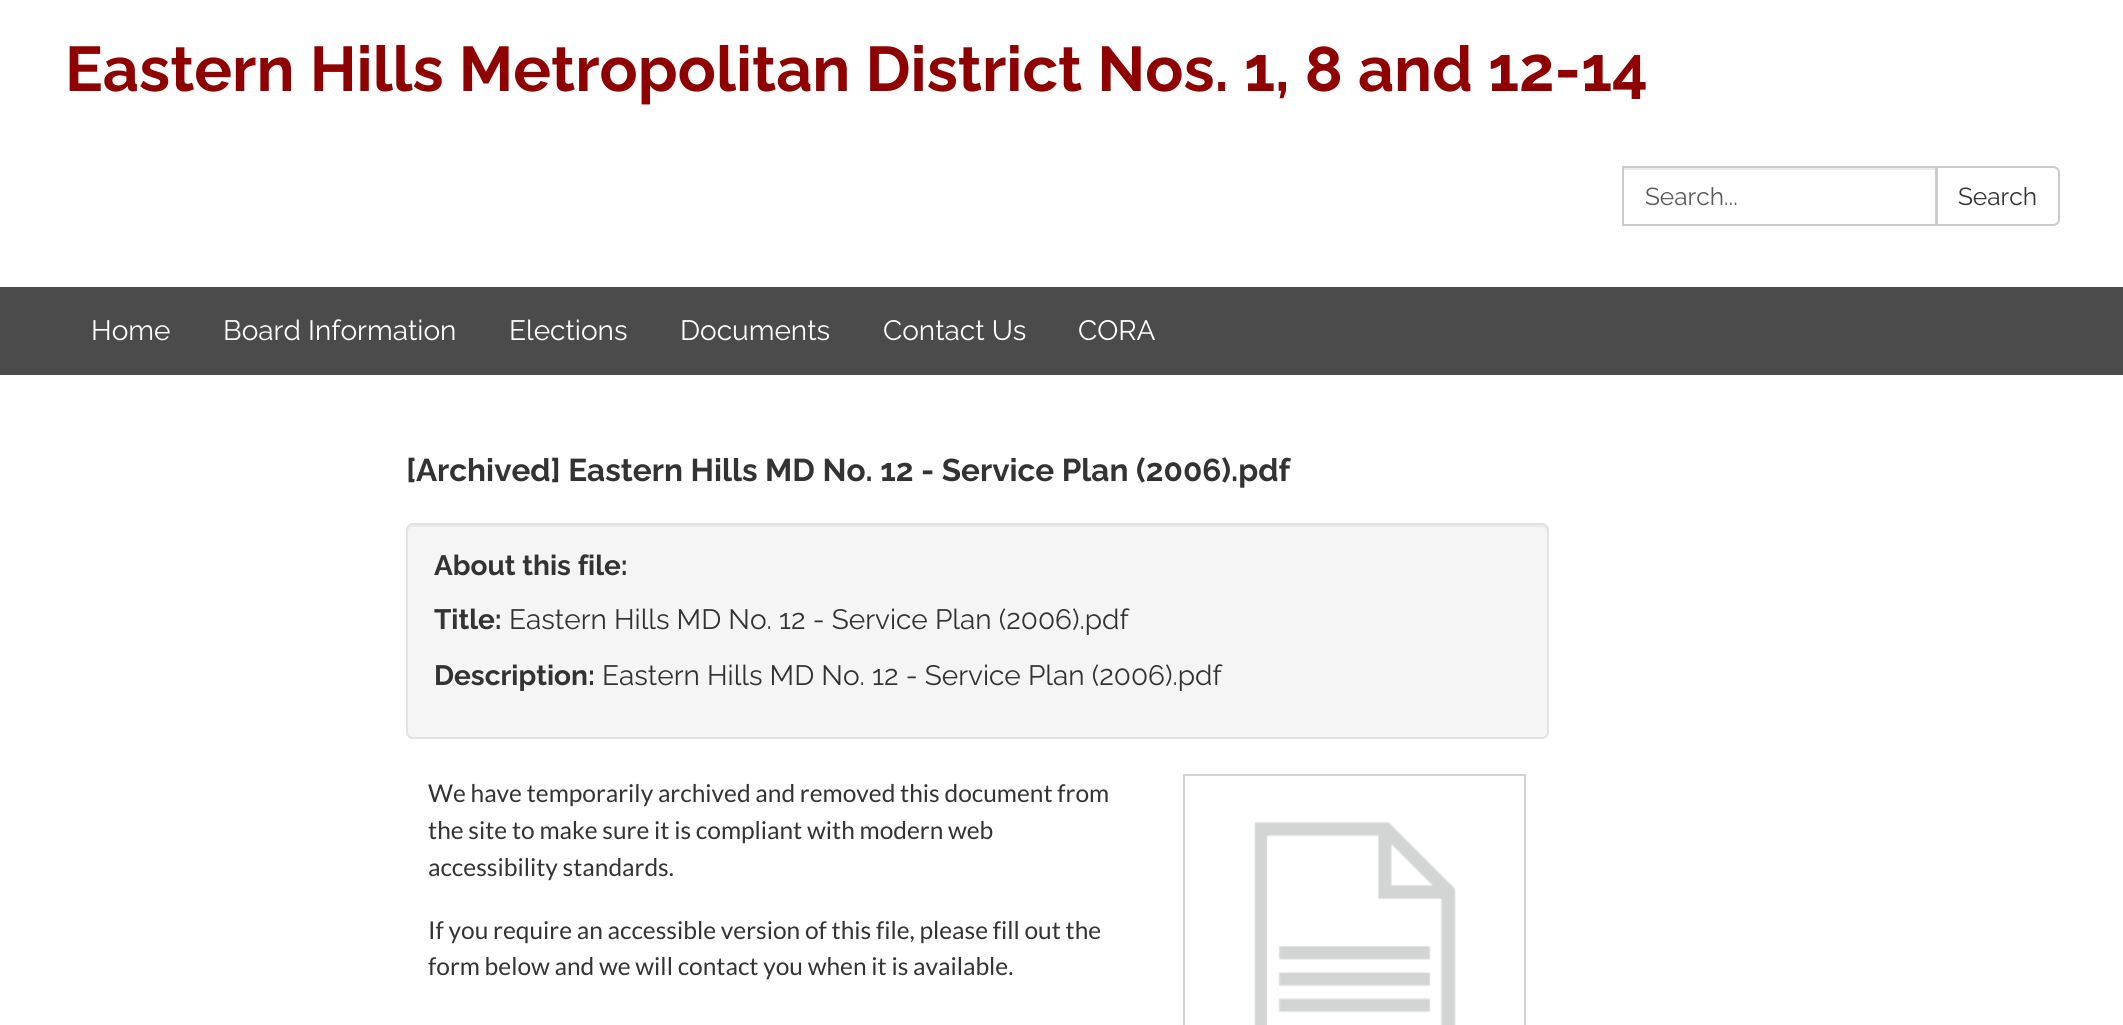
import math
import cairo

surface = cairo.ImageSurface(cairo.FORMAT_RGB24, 2123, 1025)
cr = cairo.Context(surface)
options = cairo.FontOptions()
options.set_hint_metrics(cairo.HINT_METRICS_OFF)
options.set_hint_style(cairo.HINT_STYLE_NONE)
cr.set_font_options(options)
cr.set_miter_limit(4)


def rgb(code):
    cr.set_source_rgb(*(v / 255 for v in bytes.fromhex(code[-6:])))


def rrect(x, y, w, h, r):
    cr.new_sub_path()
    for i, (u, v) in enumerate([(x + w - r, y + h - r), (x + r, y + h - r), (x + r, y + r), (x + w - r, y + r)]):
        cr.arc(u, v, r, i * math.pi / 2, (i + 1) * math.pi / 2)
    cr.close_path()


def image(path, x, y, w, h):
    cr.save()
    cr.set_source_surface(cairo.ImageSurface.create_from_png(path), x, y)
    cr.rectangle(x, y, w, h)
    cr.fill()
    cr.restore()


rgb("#4b4b4b")
cr.paint()
rgb("#ffffff")
cr.rectangle(0, 0, 2123, 287)
cr.fill()
rgb("#ececec")
cr.rectangle(1624, 168, 312, 2)
cr.fill()
cr.rectangle(1623, 167, 313, 58)
rgb("#cccccc")
cr.stroke()
rgb("#ffffff")
cr.new_path()
cr.move_to(1937, 167)
cr.line_to(2053, 167)
cr.curve_to(2056.5, 167, 2059, 169.5, 2059, 173)
cr.line_to(2059, 219)
cr.curve_to(2059, 222.5, 2056.5, 225, 2053, 225)
cr.line_to(1937, 225)
cr.close_path()
cr.fill_preserve()
rgb("#cccccc")
cr.stroke()
rgb("#ffffff")
cr.rectangle(0, 375, 2123, 650)
cr.fill()
rgb("#f5f5f5")
rrect(406, 523, 1143, 216, 7)
cr.fill()
rgb("#e9e9e9")
cr.new_path()
cr.move_to(413, 527)
cr.line_to(1542, 527)
cr.curve_to(1545, 527, 1547, 529, 1547, 532)
cr.line_to(1547, 530)
cr.curve_to(1547, 527, 1545, 525, 1542, 525)
cr.line_to(413, 525)
cr.curve_to(410, 525, 408, 527, 408, 530)
cr.line_to(408, 532)
cr.curve_to(408, 529, 410, 527, 413, 527)
cr.close_path()
cr.fill()
rrect(407, 524, 1141, 214, 6)
rgb("#e3e3e3")
cr.stroke()
cr.rectangle(1184, 775, 341, 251)
rgb("#d0d2d4")
cr.stroke()
image("img/1.png", 1254, 821, 202, 204)
cr.select_font_face("Raleway", cairo.FONT_SLANT_NORMAL, cairo.FONT_WEIGHT_BOLD)
cr.set_font_size(63)
rgb("#8f0000")
cr.move_to(65, 91)
cr.show_text("Eastern Hills Metropolitan District Nos. 1, 8 and 12-14")
cr.select_font_face("Raleway")
cr.set_font_size(24.5)
rgb("#5b5b5b")
cr.move_to(1645, 205)
cr.show_text("Search...")
rgb("#333333")
cr.move_to(1958, 205)
cr.show_text("Search")
cr.set_font_size(28)
rgb("#ffffff")
for x, y, s in [
    (91, 340, "Home"),
    (223, 340, "Board Information"),
    (509, 340, "Elections"),
    (680, 340, "Documents"),
    (883, 340, "Contact Us"),
    (1078, 340, "CORA"),
]:
    cr.move_to(x, y)
    cr.show_text(s)
cr.select_font_face("Raleway", cairo.FONT_SLANT_NORMAL, cairo.FONT_WEIGHT_BOLD)
cr.set_font_size(31.5)
rgb("#333333")
cr.move_to(406, 481)
cr.show_text("[Archived] Eastern Hills MD No. 12 - Service Plan (2006).pdf")
cr.set_font_size(28)
cr.move_to(434, 575)
cr.show_text("About this file:")
cr.move_to(434, 629)
cr.show_text("Title:")
cr.select_font_face("Raleway")
cr.move_to(509, 629)
cr.show_text("Eastern Hills MD No. 12 - Service Plan (2006).pdf")
cr.select_font_face("Raleway", cairo.FONT_SLANT_NORMAL, cairo.FONT_WEIGHT_BOLD)
cr.move_to(434, 685)
cr.show_text("Description:")
cr.select_font_face("Raleway")
cr.move_to(602, 685)
cr.show_text("Eastern Hills MD No. 12 - Service Plan (2006).pdf")
cr.select_font_face("Lato")
cr.set_font_size(24.5)
for x, y, s in [
    (428, 802, "We have temporarily archived and removed this document from"),
    (428, 839, "the site to make sure it is compliant with modern web"),
    (428, 876, "accessibility standards."),
    (428, 939, "If you require an accessible version of this file, please fill out the"),
    (428, 975, "form below and we will contact you when it is available."),
]:
    cr.move_to(x, y)
    cr.show_text(s)
surface.write_to_png("page.png")
